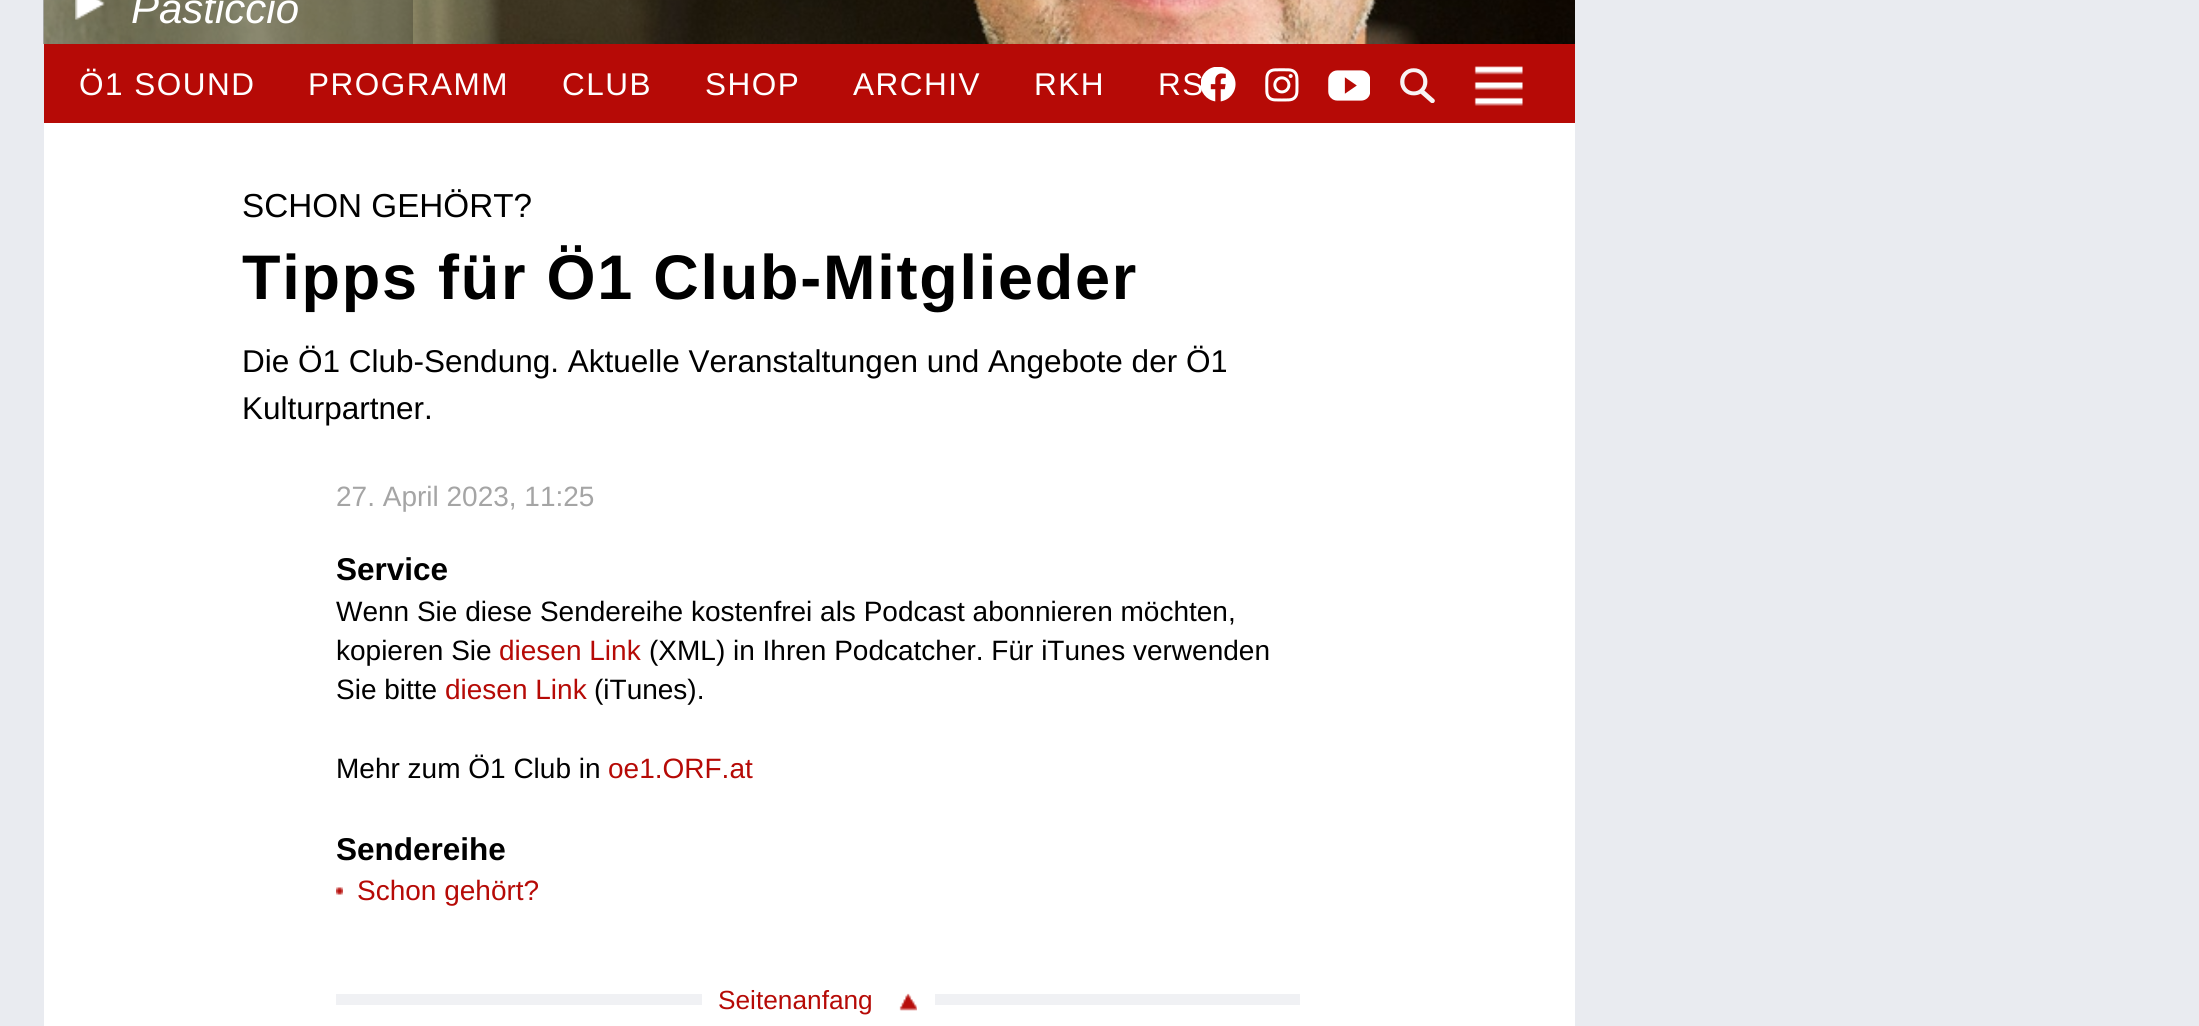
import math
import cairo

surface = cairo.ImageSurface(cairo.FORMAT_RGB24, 2199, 1026)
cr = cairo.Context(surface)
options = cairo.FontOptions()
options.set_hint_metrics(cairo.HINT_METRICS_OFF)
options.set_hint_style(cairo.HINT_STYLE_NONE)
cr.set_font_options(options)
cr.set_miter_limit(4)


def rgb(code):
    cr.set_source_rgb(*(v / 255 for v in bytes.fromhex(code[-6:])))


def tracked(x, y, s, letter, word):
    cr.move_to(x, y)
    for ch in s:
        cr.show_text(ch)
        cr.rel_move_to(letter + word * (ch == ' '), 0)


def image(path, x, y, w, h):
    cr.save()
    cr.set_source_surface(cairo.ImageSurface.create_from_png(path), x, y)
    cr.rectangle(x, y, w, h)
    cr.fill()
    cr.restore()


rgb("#e9ebf0")
cr.paint()
rgb("#ffffff")
cr.rectangle(44, 123, 1531, 903)
cr.fill()
image("img/1.png", 43, 0, 1532, 44)
cr.set_source_rgba(0, 0, 0, 0.25)
cr.rectangle(43, 0, 370, 44)
cr.fill()
image("img/2.png", 75, 0, 30, 20)
rgb("#b60a06")
cr.rectangle(44, 44, 1531, 79)
cr.fill()
image("img/4.png", 1265, 68, 34, 34)
image("img/5.png", 1328, 70, 42, 31)
image("img/6.png", 1400, 68, 35, 35)
image("img/7.png", 1474, 66, 49, 40)
image("img/8.png", 336, 887, 7, 8)
rgb("#f0f1f4")
cr.rectangle(336, 994, 964, 11)
cr.fill()
rgb("#ffffff")
cr.rectangle(720, 994, 197, 11)
cr.fill()
image("img/9.png", 899, 993, 18, 18)
cr.rectangle(711, 973, 215, 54)
cr.set_line_width(18)
cr.stroke()
cr.select_font_face("Liberation Sans", cairo.FONT_SLANT_ITALIC)
cr.set_font_size(42)
cr.move_to(131, 23)
cr.show_text("Pasticcio")
cr.select_font_face("Liberation Sans")
cr.set_font_size(31.5)
for x, y, s in [
    (79, 95, "Ö1 SOUND"),
    (308, 95, "PROGRAMM"),
    (562, 95, "CLUB"),
    (705, 95, "SHOP"),
    (853, 95, "ARCHIV"),
    (1034, 95, "RKH"),
    (1158, 95, "RS"),
]:
    tracked(x, y, s, 1.5, 0)
image("img/3.png", 1201, 67, 35, 35)
cr.set_font_size(33.25)
rgb("#000000")
cr.move_to(242, 217)
cr.show_text("SCHON GEHÖRT?")
cr.select_font_face("Liberation Sans", cairo.FONT_SLANT_NORMAL, cairo.FONT_WEIGHT_BOLD)
cr.set_font_size(63)
tracked(242, 299, "Tipps für Ö1 Club-Mitglieder", 1.75, 0)
cr.select_font_face("Liberation Sans")
cr.set_font_size(31.5)
cr.move_to(242, 372)
cr.show_text("Die Ö1 Club-Sendung. Aktuelle Veranstaltungen und Angebote der Ö1")
cr.move_to(242, 419)
cr.show_text("Kulturpartner.")
cr.set_font_size(28)
rgb("#a5a5a5")
cr.move_to(336, 506)
cr.show_text("27. April 2023, 11:25")
cr.select_font_face("Liberation Sans", cairo.FONT_SLANT_NORMAL, cairo.FONT_WEIGHT_BOLD)
cr.set_font_size(31.5)
rgb("#000000")
cr.move_to(336, 580)
cr.show_text("Service")
cr.select_font_face("Liberation Sans")
cr.set_font_size(28)
cr.move_to(336, 621)
cr.show_text("Wenn Sie diese Sendereihe kostenfrei als Podcast abonnieren möchten,")
cr.move_to(336, 660)
cr.show_text("kopieren Sie")
rgb("#b60a06")
cr.move_to(499, 660)
cr.show_text("diesen Link")
rgb("#000000")
cr.move_to(649, 660)
cr.show_text("(XML) in Ihren Podcatcher. Für iTunes verwenden")
cr.move_to(336, 699)
cr.show_text("Sie bitte")
rgb("#b60a06")
cr.move_to(445, 699)
cr.show_text("diesen Link")
rgb("#000000")
cr.move_to(594, 699)
cr.show_text("(iTunes).")
cr.move_to(336, 778)
cr.show_text("Mehr zum Ö1 Club in")
rgb("#b60a06")
cr.move_to(608, 778)
cr.show_text("oe1.ORF.at")
cr.select_font_face("Liberation Sans", cairo.FONT_SLANT_NORMAL, cairo.FONT_WEIGHT_BOLD)
cr.set_font_size(31.5)
rgb("#000000")
cr.move_to(336, 860)
cr.show_text("Sendereihe")
cr.select_font_face("Liberation Sans")
cr.set_font_size(28)
rgb("#b60a06")
cr.move_to(357, 900)
cr.show_text("Schon gehört?")
cr.set_font_size(26.25)
cr.move_to(718, 1009)
cr.show_text("Seitenanfang")
surface.write_to_png("page.png")
